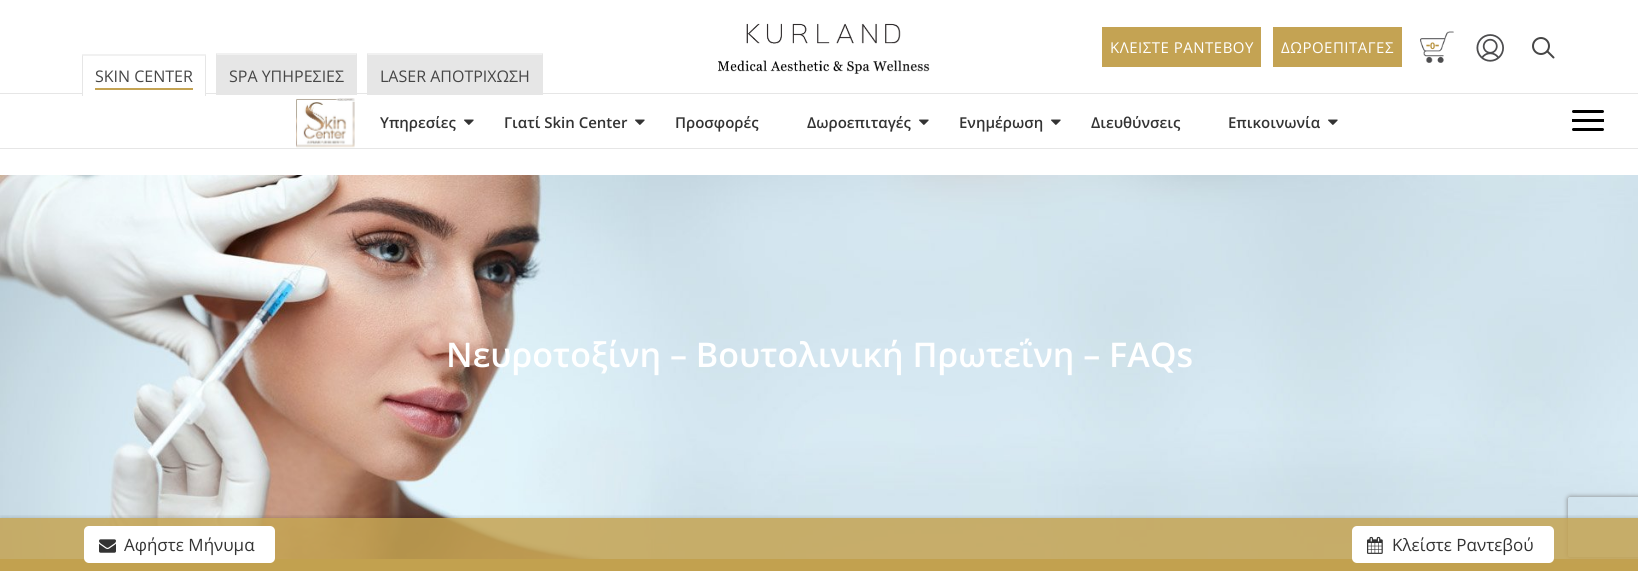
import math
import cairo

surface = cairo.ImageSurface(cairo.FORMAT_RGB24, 1638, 571)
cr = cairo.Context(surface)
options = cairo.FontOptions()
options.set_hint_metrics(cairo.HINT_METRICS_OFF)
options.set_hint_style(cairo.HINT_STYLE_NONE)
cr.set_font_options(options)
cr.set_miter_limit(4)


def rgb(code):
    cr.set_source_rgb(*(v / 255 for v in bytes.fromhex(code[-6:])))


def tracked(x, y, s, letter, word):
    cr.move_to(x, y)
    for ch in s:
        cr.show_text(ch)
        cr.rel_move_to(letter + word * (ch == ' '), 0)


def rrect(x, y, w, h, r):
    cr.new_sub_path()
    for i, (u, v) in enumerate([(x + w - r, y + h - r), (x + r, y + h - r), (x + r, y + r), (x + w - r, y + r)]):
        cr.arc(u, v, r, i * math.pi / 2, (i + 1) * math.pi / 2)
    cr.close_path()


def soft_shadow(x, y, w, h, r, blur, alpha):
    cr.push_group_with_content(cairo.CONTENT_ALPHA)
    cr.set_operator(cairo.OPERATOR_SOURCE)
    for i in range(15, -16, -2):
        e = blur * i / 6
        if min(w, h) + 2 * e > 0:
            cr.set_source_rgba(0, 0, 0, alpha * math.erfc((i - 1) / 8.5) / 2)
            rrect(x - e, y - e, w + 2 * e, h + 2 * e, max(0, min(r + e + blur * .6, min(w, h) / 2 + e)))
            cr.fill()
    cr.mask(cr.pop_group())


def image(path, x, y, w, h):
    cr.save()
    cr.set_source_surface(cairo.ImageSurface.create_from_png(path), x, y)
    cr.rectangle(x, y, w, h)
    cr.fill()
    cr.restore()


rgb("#ffffff")
cr.paint()
rgb("#e6e6e6")
cr.rectangle(0, 93, 1638, 1)
cr.fill()
image("img/1.png", 718, 23, 212, 51)
rgb("#c4a353")
cr.rectangle(1102, 27, 159, 40)
cr.fill()
cr.rectangle(1273, 27, 129, 40)
cr.fill()
image("img/2.png", 1420, 31, 34, 32)
image("img/3.png", 1476, 34, 28, 28)
cr.new_path()
cr.move_to(1547.5, 51.5)
cr.line_to(1553.5, 57.5)
rgb("#464646")
cr.set_line_cap(cairo.LINE_CAP_ROUND)
cr.stroke()
cr.arc(1541, 46, 8, 0, 2 * math.pi)
cr.set_line_cap(cairo.LINE_CAP_BUTT)
cr.stroke()
rgb("#ffffff")
cr.rectangle(82, 93, 124, 1)
cr.fill()
rgb("#f1f1f1")
cr.new_path()
cr.move_to(82, 54)
cr.line_to(206, 54)
cr.line_to(205, 56)
cr.line_to(83, 56)
cr.close_path()
cr.fill()
rgb("#e6e6e6")
cr.new_path()
cr.move_to(206, 54)
cr.line_to(206, 96)
cr.line_to(205, 96)
cr.line_to(205, 56)
cr.close_path()
cr.fill()
cr.new_path()
cr.move_to(82, 96)
cr.line_to(82, 54)
cr.line_to(83, 56)
cr.line_to(83, 96)
cr.close_path()
cr.fill()
rgb("#c4a353")
cr.rectangle(95, 88, 98, 2)
cr.fill()
rgb("#e6e6e6")
cr.rectangle(216, 53, 141, 42)
cr.fill()
rgb("#f1f1f1")
cr.new_path()
cr.move_to(216, 53)
cr.line_to(357, 53)
cr.line_to(356, 55)
cr.line_to(217, 55)
cr.close_path()
cr.fill()
rgb("#e6e6e6")
cr.rectangle(367, 53, 176, 42)
cr.fill()
rgb("#f1f1f1")
cr.new_path()
cr.move_to(367, 53)
cr.line_to(543, 53)
cr.line_to(542, 55)
cr.line_to(368, 55)
cr.close_path()
cr.fill()
rgb("#e6e6e6")
cr.rectangle(0, 148, 1638, 1)
cr.fill()
image("img/4.png", 296, 98, 59, 50)
image("img/5.png", 464, 119, 10, 6)
image("img/5.png", 635, 119, 10, 6)
image("img/5.png", 919, 119, 10, 6)
image("img/5.png", 1051, 119, 10, 6)
image("img/5.png", 1328, 119, 10, 6)
rgb("#000000")
rrect(1572, 110, 32, 3, 1.5)
cr.fill()
rrect(1572, 128, 32, 3, 1.5)
cr.fill()
cr.rectangle(1572, 119, 32, 3)
cr.fill()
image("img/6.png", 0, 175, 1638, 384)
rgb("#b8933f")
cr.rectangle(0, 559, 1638, 12)
cr.fill()
cr.save()
cr.rectangle(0, 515, 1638, 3)
cr.clip()
rgb("#000000")
soft_shadow(1, 519, 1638, 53, 0, 3, 0.3)
cr.restore()
cr.save()
cr.set_fill_rule(cairo.FILL_RULE_EVEN_ODD)
cr.new_path()
cr.move_to(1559, 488)
cr.line_to(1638, 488)
cr.line_to(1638, 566)
cr.line_to(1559, 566)
cr.close_path()
cr.move_to(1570, 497)
cr.line_to(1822, 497)
cr.curve_to(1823, 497, 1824, 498, 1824, 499)
cr.line_to(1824, 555)
cr.curve_to(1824, 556, 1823, 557, 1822, 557)
cr.line_to(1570, 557)
cr.curve_to(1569, 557, 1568, 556, 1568, 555)
cr.line_to(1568, 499)
cr.curve_to(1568, 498, 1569, 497, 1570, 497)
cr.close_path()
cr.clip()
rgb("#808080")
soft_shadow(1568, 497, 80, 60, 2, 2.5, 1)
cr.restore()
cr.set_source_rgba(0.769, 0.639, 0.325, 0.85)
cr.rectangle(0, 518, 1638, 53)
cr.fill()
rgb("#ffffff")
rrect(84, 526, 191, 37, 5)
cr.fill()
image("img/7.png", 99, 539, 17, 14)
rrect(1352, 526, 202, 37, 5)
cr.fill()
image("img/8.png", 1367, 536, 16, 18)
cr.select_font_face("Open Sans")
cr.set_font_size(15)
tracked(1110, 53, "ΚΛΕΙΣΤΕ ΡΑΝΤΕΒΟΥ", 0.5, 0)
tracked(1281, 53, "ΔΩΡΟΕΠΙΤΑΓΕΣ", 0.5, 0)
cr.select_font_face("Open Sans", cairo.FONT_SLANT_NORMAL, cairo.FONT_WEIGHT_BOLD)
cr.set_font_size(13)
rgb("#b8933f")
cr.move_to(1426, 49)
cr.show_text("-")
cr.set_font_size(9)
cr.move_to(1430, 49)
cr.show_text("0")
cr.set_font_size(13)
cr.move_to(1435, 49)
cr.show_text("-")
cr.select_font_face("Open Sans")
cr.set_font_size(16)
rgb("#464646")
for x, y, s in [
    (95, 82, "SKIN CENTER"),
    (229, 82, "SPA ΥΠΗΡΕΣΙΕΣ"),
    (380, 82, "LASER ΑΠΟΤΡΙΧΩΣΗ"),
]:
    cr.move_to(x, y)
    cr.show_text(s)
cr.select_font_face("Open Sans SemiBold")
cr.set_font_size(15)
rgb("#333333")
for x, y, s in [
    (380, 128, "Υπηρεσίες"),
    (504, 128, "Γιατί Skin Center"),
    (675, 128, "Προσφορές"),
    (807, 128, "Δωροεπιταγές"),
    (959, 128, "Ενημέρωση"),
    (1091, 128, "Διευθύνσεις"),
    (1228, 128, "Επικοινωνία"),
]:
    cr.move_to(x, y)
    cr.show_text(s)
cr.set_font_size(34)
rgb("#ffffff")
cr.move_to(446, 367)
cr.show_text("Νευροτοξίνη – Βουτολινική Πρωτεΐνη – FAQs")
cr.select_font_face("Open Sans")
cr.set_font_size(17)
rgb("#333333")
cr.move_to(124, 551)
cr.show_text("Αφήστε Μήνυμα")
cr.move_to(1392, 551)
cr.show_text("Κλείστε Ραντεβού")
surface.write_to_png("page.png")
